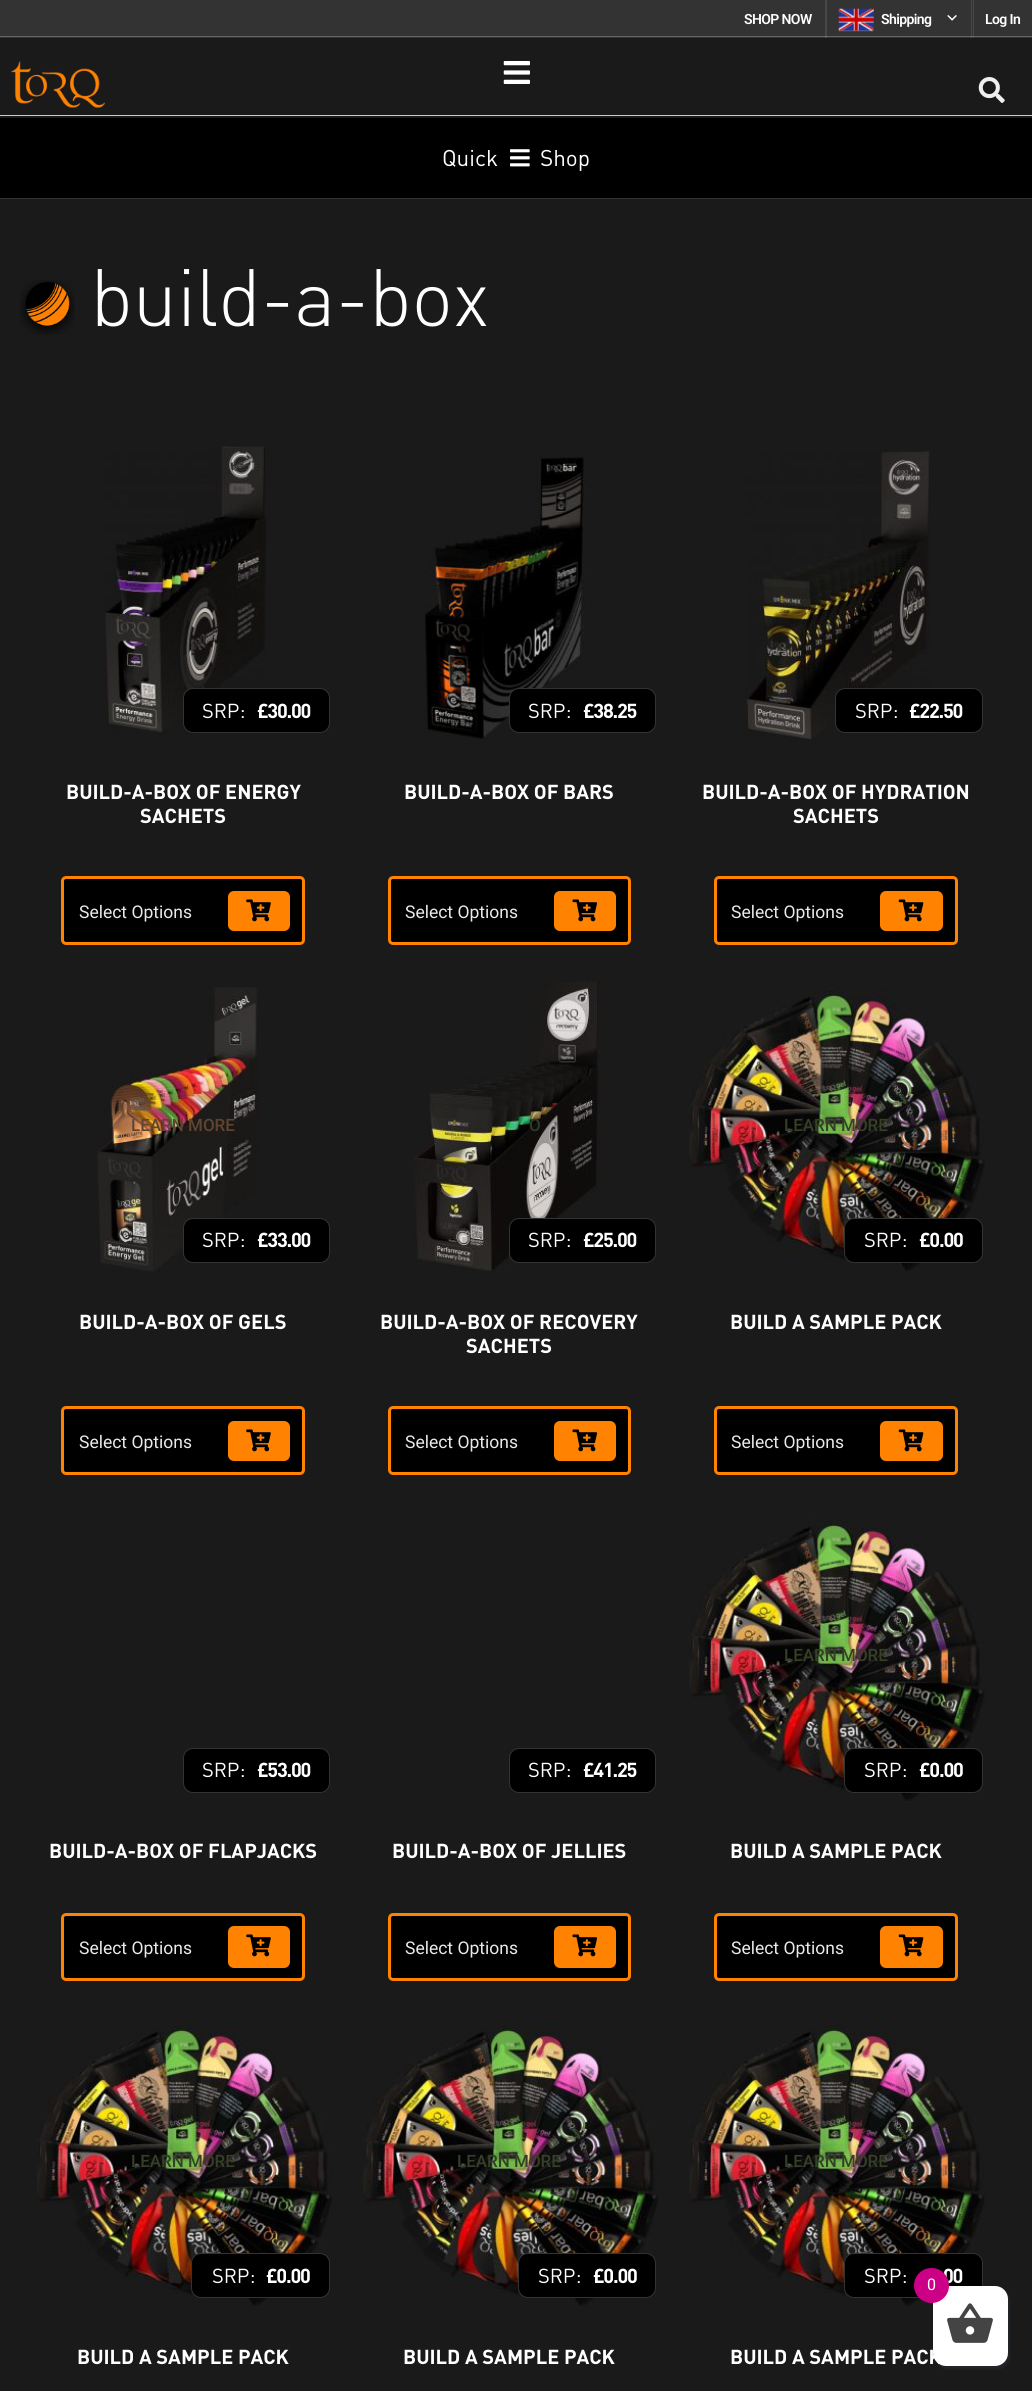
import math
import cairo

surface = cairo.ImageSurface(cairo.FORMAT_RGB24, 1032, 2391)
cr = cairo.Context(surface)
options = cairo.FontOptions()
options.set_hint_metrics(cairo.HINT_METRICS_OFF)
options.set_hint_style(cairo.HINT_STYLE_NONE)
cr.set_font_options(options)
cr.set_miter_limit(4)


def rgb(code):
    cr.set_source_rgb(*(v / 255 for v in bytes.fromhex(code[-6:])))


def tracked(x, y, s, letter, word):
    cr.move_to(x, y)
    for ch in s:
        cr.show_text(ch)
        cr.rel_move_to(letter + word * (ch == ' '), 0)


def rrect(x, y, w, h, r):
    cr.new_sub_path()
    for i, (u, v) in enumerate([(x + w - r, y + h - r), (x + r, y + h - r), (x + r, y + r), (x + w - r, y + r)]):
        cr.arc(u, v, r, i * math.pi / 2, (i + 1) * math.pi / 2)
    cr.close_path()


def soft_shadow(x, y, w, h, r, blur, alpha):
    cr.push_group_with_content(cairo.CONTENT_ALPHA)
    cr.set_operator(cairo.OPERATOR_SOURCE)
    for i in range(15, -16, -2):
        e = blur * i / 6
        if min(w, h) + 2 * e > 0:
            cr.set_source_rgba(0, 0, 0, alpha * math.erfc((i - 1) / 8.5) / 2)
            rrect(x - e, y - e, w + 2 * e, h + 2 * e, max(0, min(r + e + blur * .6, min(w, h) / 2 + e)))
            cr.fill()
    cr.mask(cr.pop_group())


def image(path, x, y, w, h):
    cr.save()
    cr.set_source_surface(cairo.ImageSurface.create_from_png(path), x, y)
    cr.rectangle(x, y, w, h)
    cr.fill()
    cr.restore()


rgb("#1a1a1a")
cr.paint()
for x, y, w, h, color in [
    (0, 115, 1032, 1, "#cccccc"),
    (0, 0, 1032, 38, "#333333"),
    (971, 0, 1, 38, "#474747"),
    (973, 0, 1, 38, "#474747"),
    (825, 0, 2, 38, "#474747"),
    (0, 36, 1032, 1, "#666666"),
    (971, 36, 1, 1, "#757575"),
    (973, 36, 1, 1, "#757575"),
    (825, 36, 2, 1, "#757575"),
]:
    rgb(color)
    cr.rectangle(x, y, w, h)
    cr.fill()
image("img/1.png", 838, 8, 36, 24)
image("img/2.png", 947, 15, 10, 6)
image("img/3.png", 11, 61, 94, 47)
image("img/4.png", 503, 61, 27, 23)
image("img/5.png", 978, 77, 27, 26)
rgb("#000000")
cr.rectangle(0, 118, 1032, 80)
cr.fill()
rgb("#333333")
cr.rectangle(0, 198, 1032, 1)
cr.fill()
image("img/6.png", 510, 149, 20, 18)
image("img/7.png", 20, 280, 55, 55)
image("img/8.png", 105, 446, 161, 289)
rgb("#000000")
rrect(183.5, 688.5, 146, 44, 9.5)
cr.fill_preserve()
rgb("#333333")
cr.set_line_width(1)
cr.stroke()
rgb("#000000")
rrect(62.5, 877.5, 241, 66, 3.5)
cr.fill_preserve()
rgb("#ff8300")
cr.set_line_width(3)
cr.stroke()
rrect(228, 891, 62, 40, 6)
cr.fill()
image("img/9.png", 246, 899, 25, 23)
image("img/10.png", 425, 457, 160, 282)
rgb("#000000")
rrect(509.5, 688.5, 146, 44, 9.5)
cr.fill_preserve()
rgb("#333333")
cr.set_line_width(1)
cr.stroke()
rgb("#000000")
rrect(389.5, 877.5, 240, 66, 3.5)
cr.fill_preserve()
rgb("#ff8300")
cr.set_line_width(3)
cr.stroke()
rrect(554, 891, 62, 40, 6)
cr.fill()
image("img/11.png", 572, 899, 26, 23)
image("img/12.png", 746, 451, 184, 289)
rgb("#000000")
rrect(835.5, 688.5, 147, 44, 9.5)
cr.fill_preserve()
rgb("#333333")
cr.set_line_width(1)
cr.stroke()
rgb("#000000")
rrect(715.5, 877.5, 241, 66, 3.5)
cr.fill_preserve()
rgb("#ff8300")
cr.set_line_width(3)
cr.stroke()
rrect(880, 891, 63, 40, 6)
cr.fill()
image("img/13.png", 898, 899, 26, 23)
image("img/14.png", 97, 987, 162, 285)
rgb("#000000")
rrect(183.5, 1218.5, 146, 44, 9.5)
cr.fill_preserve()
rgb("#333333")
cr.set_line_width(1)
cr.stroke()
rgb("#000000")
rrect(62.5, 1407.5, 241, 66, 3.5)
cr.fill_preserve()
rgb("#ff8300")
cr.set_line_width(3)
cr.stroke()
rrect(228, 1421, 62, 40, 6)
cr.fill()
image("img/9.png", 246, 1429, 25, 23)
image("img/15.png", 414, 981, 187, 290)
rgb("#000000")
rrect(509.5, 1218.5, 146, 44, 9.5)
cr.fill_preserve()
rgb("#333333")
cr.set_line_width(1)
cr.stroke()
rgb("#000000")
rrect(389.5, 1407.5, 240, 66, 3.5)
cr.fill_preserve()
rgb("#ff8300")
cr.set_line_width(3)
cr.stroke()
rrect(554, 1421, 62, 40, 6)
cr.fill()
image("img/11.png", 572, 1429, 26, 23)
image("img/16.png", 689, 989, 296, 282)
rgb("#000000")
rrect(844.5, 1218.5, 138, 44, 9.5)
cr.fill_preserve()
rgb("#333333")
cr.set_line_width(1)
cr.stroke()
rgb("#000000")
rrect(715.5, 1407.5, 241, 66, 3.5)
cr.fill_preserve()
rgb("#ff8300")
cr.set_line_width(3)
cr.stroke()
rrect(880, 1421, 63, 40, 6)
cr.fill()
image("img/13.png", 898, 1429, 26, 23)
rgb("#000000")
rrect(183.5, 1748.5, 146, 44, 9.5)
cr.fill_preserve()
rgb("#333333")
cr.set_line_width(1)
cr.stroke()
rgb("#000000")
rrect(62.5, 1914.5, 241, 65, 3.5)
cr.fill_preserve()
rgb("#ff8300")
cr.set_line_width(3)
cr.stroke()
rrect(228, 1926, 62, 42, 6)
cr.fill()
image("img/9.png", 246, 1934, 25, 23)
rgb("#000000")
rrect(509.5, 1748.5, 146, 44, 9.5)
cr.fill_preserve()
rgb("#333333")
cr.set_line_width(1)
cr.stroke()
rgb("#000000")
rrect(389.5, 1914.5, 240, 65, 3.5)
cr.fill_preserve()
rgb("#ff8300")
cr.set_line_width(3)
cr.stroke()
rrect(554, 1926, 62, 42, 6)
cr.fill()
image("img/11.png", 572, 1934, 26, 23)
image("img/17.png", 689, 1519, 296, 282)
rgb("#000000")
rrect(844.5, 1748.5, 138, 44, 9.5)
cr.fill_preserve()
rgb("#333333")
cr.set_line_width(1)
cr.stroke()
rgb("#000000")
rrect(715.5, 1914.5, 241, 65, 3.5)
cr.fill_preserve()
rgb("#ff8300")
cr.set_line_width(3)
cr.stroke()
rrect(880, 1926, 63, 42, 6)
cr.fill()
image("img/13.png", 898, 1934, 26, 23)
image("img/18.png", 37, 2024, 295, 282)
rgb("#000000")
rrect(191.5, 2253.5, 138, 44, 9.5)
cr.fill_preserve()
rgb("#333333")
cr.set_line_width(1)
cr.stroke()
image("img/19.png", 363, 2024, 295, 282)
rgb("#000000")
rrect(518.5, 2253.5, 137, 44, 9.5)
cr.fill_preserve()
rgb("#333333")
cr.stroke()
image("img/17.png", 689, 2024, 296, 282)
rgb("#000000")
rrect(844.5, 2253.5, 138, 44, 9.5)
cr.fill_preserve()
rgb("#333333")
cr.stroke()
rgb("#212529")
soft_shadow(935, 2289, 75, 80, 13, 1, 1)
rgb("#ffffff")
rrect(933, 2286, 75, 80, 13)
cr.fill()
image("img/20.png", 947, 2303, 46, 40)
cr.select_font_face("Roboto SemiBold")
cr.set_font_size(14)
for x, y, s in [
    (744, 24, "SHOP NOW"),
    (881, 24, "Shipping"),
    (985, 24, "Log In"),
]:
    tracked(x, y, s, -0.6, 0)
cr.select_font_face("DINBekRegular")
cr.set_font_size(22.5)
cr.move_to(442, 166)
cr.show_text("Quick")
cr.move_to(540, 166)
cr.show_text("Shop")
cr.select_font_face("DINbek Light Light")
cr.set_font_size(80)
tracked(90, 326, "build-a-box", -0.6, 0)
cr.select_font_face("DINBekRegular")
cr.set_font_size(20)
cr.move_to(202, 718)
cr.show_text("SRP:")
cr.select_font_face("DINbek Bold", cairo.FONT_SLANT_NORMAL, cairo.FONT_WEIGHT_BOLD)
tracked(257, 718, "£30.00", -1.25, 0)
cr.move_to(66, 799)
cr.show_text("BUILD-A-BOX OF ENERGY")
cr.move_to(140, 823)
cr.show_text("SACHETS")
cr.select_font_face("Roboto")
cr.set_font_size(17.5)
rgb("#eaeaea")
cr.move_to(79, 918)
cr.show_text("Select Options")
cr.select_font_face("DINBekRegular")
cr.set_font_size(20)
rgb("#ffffff")
cr.move_to(528, 718)
cr.show_text("SRP:")
cr.select_font_face("DINbek Bold", cairo.FONT_SLANT_NORMAL, cairo.FONT_WEIGHT_BOLD)
tracked(583, 718, "£38.25", -1.25, 0)
cr.move_to(404, 799)
cr.show_text("BUILD-A-BOX OF BARS")
cr.select_font_face("Roboto")
cr.set_font_size(17.5)
rgb("#eaeaea")
cr.move_to(405, 918)
cr.show_text("Select Options")
cr.select_font_face("DINBekRegular")
cr.set_font_size(20)
rgb("#ffffff")
cr.move_to(855, 718)
cr.show_text("SRP:")
cr.select_font_face("DINbek Bold", cairo.FONT_SLANT_NORMAL, cairo.FONT_WEIGHT_BOLD)
tracked(909, 718, "£22.50", -1.25, 0)
cr.move_to(702, 799)
cr.show_text("BUILD-A-BOX OF HYDRATION")
cr.move_to(793, 823)
cr.show_text("SACHETS")
cr.select_font_face("Roboto")
cr.set_font_size(17.5)
rgb("#eaeaea")
cr.move_to(731, 918)
cr.show_text("Select Options")
cr.select_font_face("Roboto Medium")
cr.set_font_size(17)
rgb("#614430")
cr.move_to(131, 1131)
cr.show_text("LEARN MORE")
cr.select_font_face("DINBekRegular")
cr.set_font_size(20)
rgb("#ffffff")
cr.move_to(202, 1247)
cr.show_text("SRP:")
cr.select_font_face("DINbek Bold", cairo.FONT_SLANT_NORMAL, cairo.FONT_WEIGHT_BOLD)
tracked(257, 1247, "£33.00", -1.25, 0)
cr.move_to(79, 1329)
cr.show_text("BUILD-A-BOX OF GELS")
cr.select_font_face("Roboto")
cr.set_font_size(17.5)
rgb("#eaeaea")
cr.move_to(79, 1448)
cr.show_text("Select Options")
cr.select_font_face("Roboto Medium")
cr.set_font_size(17)
rgb("#303a2c")
cr.move_to(529, 1131)
cr.show_text("O")
cr.select_font_face("DINBekRegular")
cr.set_font_size(20)
rgb("#ffffff")
cr.move_to(528, 1247)
cr.show_text("SRP:")
cr.select_font_face("DINbek Bold", cairo.FONT_SLANT_NORMAL, cairo.FONT_WEIGHT_BOLD)
tracked(583, 1247, "£25.00", -1.25, 0)
cr.move_to(380, 1329)
cr.show_text("BUILD-A-BOX OF RECOVERY")
cr.move_to(466, 1353)
cr.show_text("SACHETS")
cr.select_font_face("Roboto")
cr.set_font_size(17.5)
rgb("#eaeaea")
cr.move_to(405, 1448)
cr.show_text("Select Options")
cr.select_font_face("Roboto Medium")
cr.set_font_size(17)
rgb("#354026")
cr.move_to(784, 1131)
cr.show_text("LEARN MORE")
cr.select_font_face("DINBekRegular")
cr.set_font_size(20)
rgb("#ffffff")
cr.move_to(864, 1247)
cr.show_text("SRP:")
cr.select_font_face("DINbek Bold", cairo.FONT_SLANT_NORMAL, cairo.FONT_WEIGHT_BOLD)
tracked(919, 1247, "£0.00", -1.25, 0)
cr.move_to(730, 1329)
cr.show_text("BUILD A SAMPLE PACK")
cr.select_font_face("Roboto")
cr.set_font_size(17.5)
rgb("#eaeaea")
cr.move_to(731, 1448)
cr.show_text("Select Options")
cr.select_font_face("DINBekRegular")
cr.set_font_size(20)
rgb("#ffffff")
cr.move_to(202, 1777)
cr.show_text("SRP:")
cr.select_font_face("DINbek Bold", cairo.FONT_SLANT_NORMAL, cairo.FONT_WEIGHT_BOLD)
tracked(257, 1777, "£53.00", -1.25, 0)
cr.move_to(49, 1858)
cr.show_text("BUILD-A-BOX OF FLAPJACKS")
cr.select_font_face("Roboto")
cr.set_font_size(17.5)
rgb("#eaeaea")
cr.move_to(79, 1954)
cr.show_text("Select Options")
cr.select_font_face("DINBekRegular")
cr.set_font_size(20)
rgb("#ffffff")
cr.move_to(528, 1777)
cr.show_text("SRP:")
cr.select_font_face("DINbek Bold", cairo.FONT_SLANT_NORMAL, cairo.FONT_WEIGHT_BOLD)
tracked(583, 1777, "£41.25", -1.25, 0)
cr.move_to(392, 1858)
cr.show_text("BUILD-A-BOX OF JELLIES")
cr.select_font_face("Roboto")
cr.set_font_size(17.5)
rgb("#eaeaea")
cr.move_to(405, 1954)
cr.show_text("Select Options")
cr.select_font_face("Roboto Medium")
cr.set_font_size(17)
rgb("#354026")
cr.move_to(784, 1661)
cr.show_text("LEARN MORE")
cr.select_font_face("DINBekRegular")
cr.set_font_size(20)
rgb("#ffffff")
cr.move_to(864, 1777)
cr.show_text("SRP:")
cr.select_font_face("DINbek Bold", cairo.FONT_SLANT_NORMAL, cairo.FONT_WEIGHT_BOLD)
tracked(919, 1777, "£0.00", -1.25, 0)
cr.move_to(730, 1858)
cr.show_text("BUILD A SAMPLE PACK")
cr.select_font_face("Roboto")
cr.set_font_size(17.5)
rgb("#eaeaea")
cr.move_to(731, 1954)
cr.show_text("Select Options")
cr.select_font_face("Roboto Medium")
cr.set_font_size(17)
rgb("#354026")
cr.move_to(131, 2167)
cr.show_text("LEARN MORE")
cr.select_font_face("DINBekRegular")
cr.set_font_size(20)
rgb("#ffffff")
cr.move_to(212, 2283)
cr.show_text("SRP:")
cr.select_font_face("DINbek Bold", cairo.FONT_SLANT_NORMAL, cairo.FONT_WEIGHT_BOLD)
tracked(266, 2283, "£0.00", -1.25, 0)
cr.move_to(77, 2364)
cr.show_text("BUILD A SAMPLE PACK")
cr.select_font_face("Roboto Medium")
cr.set_font_size(17)
rgb("#354026")
cr.move_to(457, 2167)
cr.show_text("LEARN MORE")
cr.select_font_face("DINBekRegular")
cr.set_font_size(20)
rgb("#ffffff")
cr.move_to(538, 2283)
cr.show_text("SRP:")
cr.select_font_face("DINbek Bold", cairo.FONT_SLANT_NORMAL, cairo.FONT_WEIGHT_BOLD)
tracked(593, 2283, "£0.00", -1.25, 0)
cr.move_to(403, 2364)
cr.show_text("BUILD A SAMPLE PACK")
cr.select_font_face("Roboto Medium")
cr.set_font_size(17)
rgb("#354026")
cr.move_to(784, 2167)
cr.show_text("LEARN MORE")
cr.select_font_face("DINBekRegular")
cr.set_font_size(20)
rgb("#ffffff")
cr.move_to(864, 2283)
cr.show_text("SRP:")
cr.select_font_face("DINbek Bold", cairo.FONT_SLANT_NORMAL, cairo.FONT_WEIGHT_BOLD)
tracked(943, 2283, "00", -1.25, 0)
cr.move_to(730, 2364)
cr.show_text("BUILD A SAMPLE PACK")
rgb("#cc0086")
cr.new_path()
cr.arc(931.5, 2285.5, 17.5, 0, 2 * math.pi)
cr.fill()
cr.select_font_face("Roboto")
cr.set_font_size(16)
rgb("#ffffff")
cr.move_to(927, 2290)
cr.show_text("0")
surface.write_to_png("page.png")
